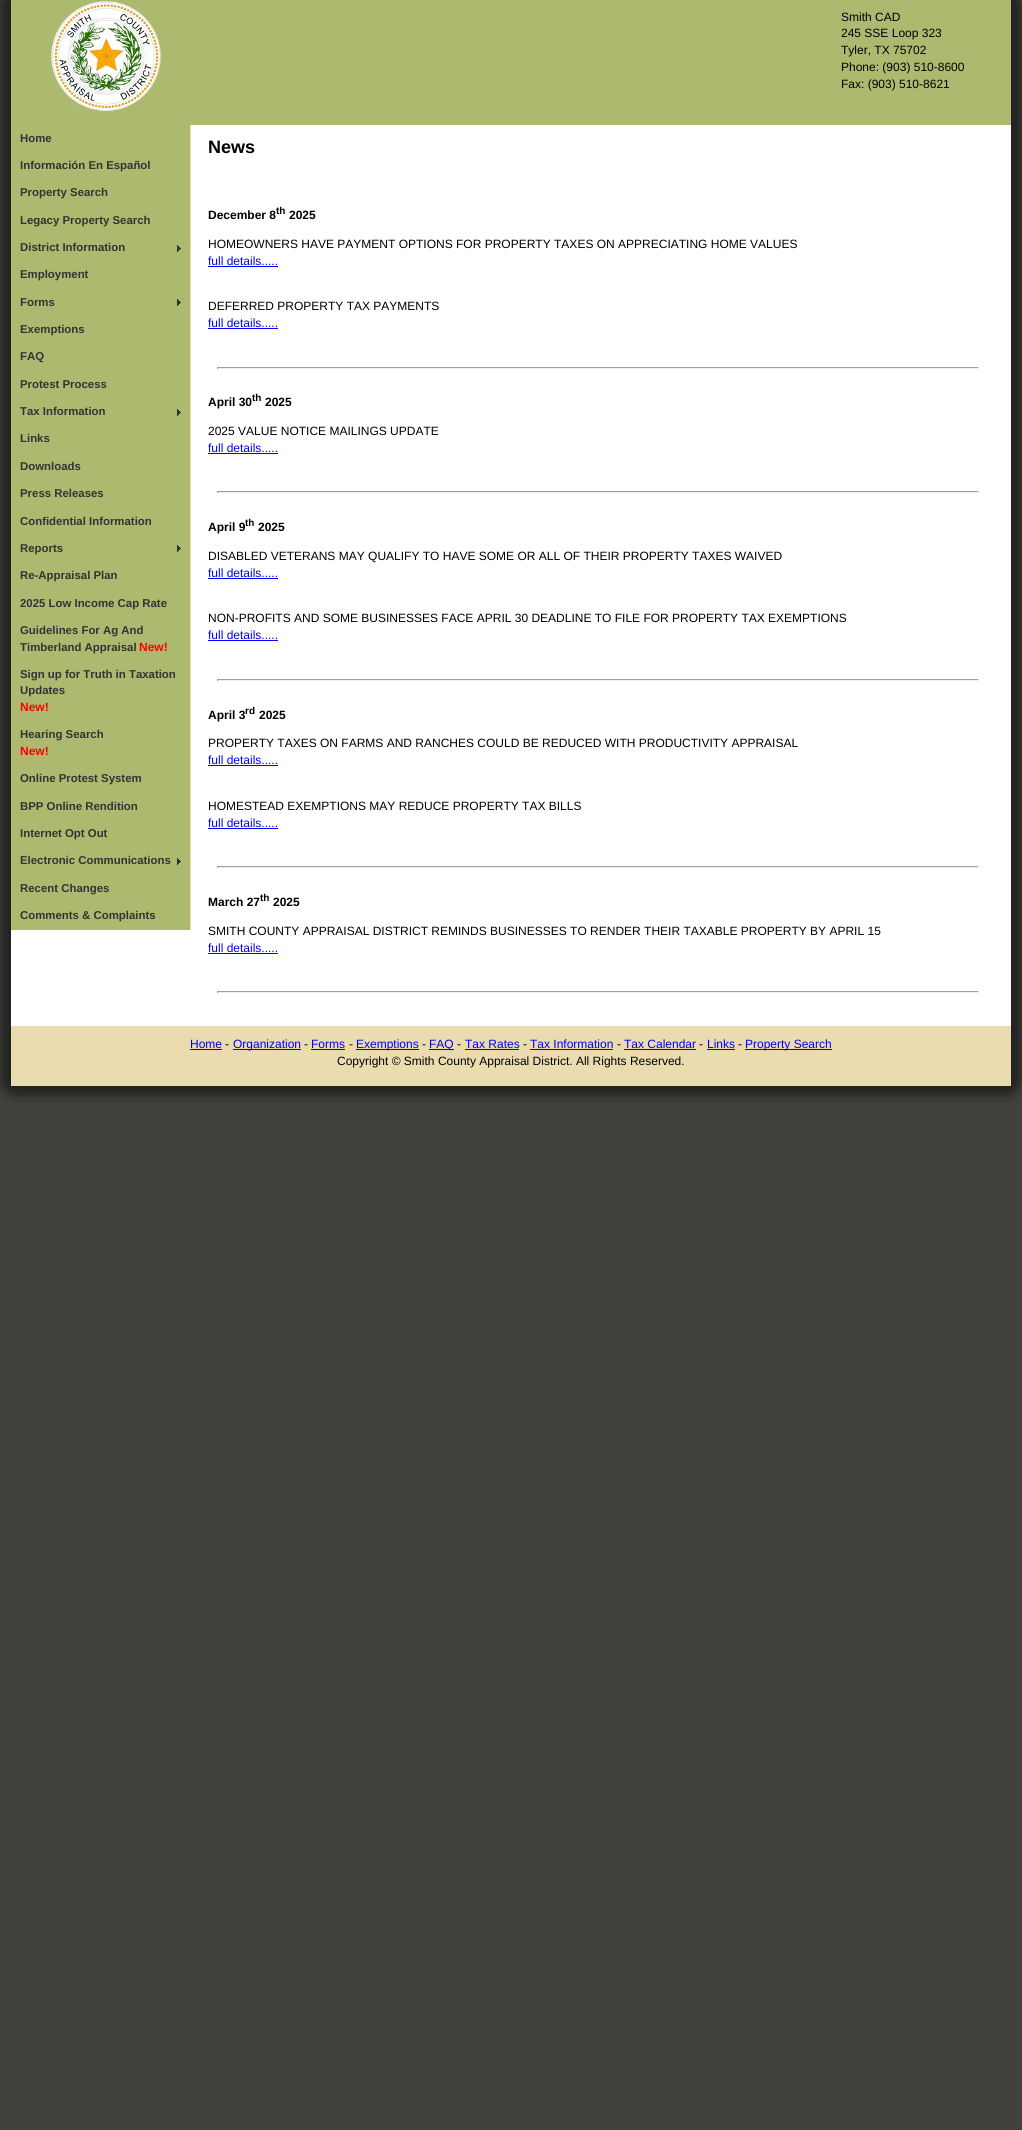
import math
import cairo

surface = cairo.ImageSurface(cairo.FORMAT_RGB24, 1022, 2130)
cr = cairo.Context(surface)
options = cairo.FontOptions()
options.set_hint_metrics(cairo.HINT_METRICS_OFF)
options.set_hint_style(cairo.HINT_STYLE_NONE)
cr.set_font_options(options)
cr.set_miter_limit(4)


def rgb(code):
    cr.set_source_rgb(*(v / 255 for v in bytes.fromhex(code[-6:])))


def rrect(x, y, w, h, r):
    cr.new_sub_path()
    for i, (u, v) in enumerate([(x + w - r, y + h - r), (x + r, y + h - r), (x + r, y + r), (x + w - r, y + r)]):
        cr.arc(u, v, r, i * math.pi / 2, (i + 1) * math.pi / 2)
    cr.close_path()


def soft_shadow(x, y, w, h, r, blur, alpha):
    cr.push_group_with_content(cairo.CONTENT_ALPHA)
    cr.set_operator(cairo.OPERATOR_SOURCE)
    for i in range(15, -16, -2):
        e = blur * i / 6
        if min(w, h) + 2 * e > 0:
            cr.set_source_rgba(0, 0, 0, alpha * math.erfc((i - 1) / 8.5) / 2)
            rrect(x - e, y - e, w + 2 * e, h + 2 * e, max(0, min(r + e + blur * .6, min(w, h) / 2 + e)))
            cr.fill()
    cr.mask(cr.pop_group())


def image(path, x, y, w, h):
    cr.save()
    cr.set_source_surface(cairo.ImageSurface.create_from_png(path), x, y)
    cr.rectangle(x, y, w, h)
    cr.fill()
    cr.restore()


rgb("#42413c")
cr.paint()
rgb("#222222")
soft_shadow(1, -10, 1020, 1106, 15, 5, 1)
rgb("#ffffff")
cr.rectangle(11, 125, 1000, 901)
cr.fill()
rgb("#adb96e")
cr.rectangle(11, 0, 1000, 125)
cr.fill()
image("img/1.png", 51, 1, 110, 110)
rgb("#eadcae")
cr.rectangle(190, 125, 1, 805)
cr.fill()
rgb("#adb96e")
cr.rectangle(11, 125, 179, 805)
cr.fill()
image("img/2.png", 177, 245, 4, 7)
image("img/2.png", 177, 299, 4, 7)
image("img/2.png", 177, 409, 4, 7)
image("img/2.png", 177, 545, 4, 7)
image("img/2.png", 177, 858, 4, 7)
for x, y, w, h, color in [
    (208, 266, 70, 1, "#0000ff"),
    (208, 328, 70, 1, "#0000ff"),
    (217, 367, 762, 1, "#9f9f9f"),
    (978, 367, 1, 2, "#eeeeee"),
    (217, 368, 762, 1, "#eeeeee"),
    (217, 367, 1, 2, "#9f9f9f"),
    (208, 453, 70, 1, "#0000ff"),
    (217, 491, 762, 1, "#9f9f9f"),
    (978, 491, 1, 2, "#eeeeee"),
    (217, 492, 762, 1, "#eeeeee"),
    (217, 491, 1, 2, "#9f9f9f"),
    (208, 578, 70, 1, "#0000ff"),
    (208, 640, 70, 1, "#0000ff"),
    (217, 679, 762, 1, "#9f9f9f"),
    (978, 679, 1, 2, "#eeeeee"),
    (217, 680, 762, 1, "#eeeeee"),
    (217, 679, 1, 2, "#9f9f9f"),
    (208, 765, 70, 1, "#0000ff"),
    (208, 828, 70, 1, "#0000ff"),
    (217, 866, 762, 1, "#9f9f9f"),
    (978, 866, 1, 2, "#eeeeee"),
    (217, 867, 762, 1, "#eeeeee"),
    (217, 866, 1, 2, "#9f9f9f"),
    (208, 953, 70, 1, "#0000ff"),
    (217, 991, 762, 1, "#9f9f9f"),
    (978, 991, 1, 2, "#eeeeee"),
    (217, 992, 762, 1, "#eeeeee"),
    (217, 991, 1, 2, "#9f9f9f"),
    (11, 1026, 1000, 60, "#eadcae"),
    (190, 1049, 32, 1, "#0000ff"),
    (233, 1049, 68, 1, "#0000ff"),
    (311, 1049, 34, 1, "#0000ff"),
    (356, 1049, 63, 1, "#0000ff"),
    (429, 1049, 25, 1, "#0000ff"),
    (465, 1049, 54, 1, "#0000ff"),
    (530, 1049, 83, 1, "#0000ff"),
    (624, 1049, 72, 1, "#0000ff"),
    (707, 1049, 28, 1, "#0000ff"),
    (745, 1049, 87, 1, "#0000ff"),
]:
    rgb(color)
    cr.rectangle(x, y, w, h)
    cr.fill()
cr.select_font_face("Liberation Sans")
cr.set_font_size(12)
rgb("#000000")
for x, y, s in [
    (841, 21, "Smith CAD"),
    (841, 37, "245 SSE Loop 323"),
    (841, 54, "Tyler, TX 75702"),
    (841, 71, "Phone: (903) 510-8600"),
    (841, 88, "Fax: (903) 510-8621"),
]:
    cr.move_to(x, y)
    cr.show_text(s)
cr.select_font_face("Liberation Sans", cairo.FONT_SLANT_NORMAL, cairo.FONT_WEIGHT_BOLD)
cr.set_font_size(11.4)
rgb("#333333")
for x, y, s in [
    (20, 142, "Home"),
    (20, 169, "Información En Español"),
    (20, 196, "Property Search"),
    (20, 224, "Legacy Property Search"),
    (20, 251, "District Information"),
    (20, 278, "Employment"),
    (20, 306, "Forms"),
    (20, 333, "Exemptions"),
    (20, 360, "FAQ"),
    (20, 388, "Protest Process"),
    (20, 415, "Tax Information"),
    (20, 442, "Links"),
    (20, 470, "Downloads"),
    (20, 497, "Press Releases"),
    (20, 525, "Confidential Information"),
    (20, 552, "Reports"),
    (20, 579, "Re-Appraisal Plan"),
    (20, 607, "2025 Low Income Cap Rate"),
    (20, 634, "Guidelines For Ag And"),
    (20, 651, "Timberland Appraisal"),
]:
    cr.move_to(x, y)
    cr.show_text(s)
cr.set_font_size(12)
rgb("#ff0000")
cr.move_to(139, 651)
cr.show_text("New!")
cr.set_font_size(11.4)
rgb("#333333")
cr.move_to(20, 678)
cr.show_text("Sign up for Truth in Taxation")
cr.move_to(20, 694)
cr.show_text("Updates")
cr.set_font_size(12)
rgb("#ff0000")
cr.move_to(20, 711)
cr.show_text("New!")
cr.set_font_size(11.4)
rgb("#333333")
cr.move_to(20, 738)
cr.show_text("Hearing Search")
cr.set_font_size(12)
rgb("#ff0000")
cr.move_to(20, 755)
cr.show_text("New!")
cr.set_font_size(11.4)
rgb("#333333")
for x, y, s in [
    (20, 782, "Online Protest System"),
    (20, 810, "BPP Online Rendition"),
    (20, 837, "Internet Opt Out"),
    (20, 864, "Electronic Communications"),
    (20, 892, "Recent Changes"),
    (20, 919, "Comments & Complaints"),
]:
    cr.move_to(x, y)
    cr.show_text(s)
cr.set_font_size(18)
rgb("#000000")
cr.move_to(208, 153)
cr.show_text("News")
cr.set_font_size(12)
cr.move_to(208, 219)
cr.show_text("December 8")
cr.set_font_size(10)
cr.move_to(276, 214)
cr.show_text("th")
cr.set_font_size(12)
cr.move_to(289, 219)
cr.show_text("2025")
cr.select_font_face("Liberation Sans")
cr.move_to(208, 248)
cr.show_text("HOMEOWNERS HAVE PAYMENT OPTIONS FOR PROPERTY TAXES ON APPRECIATING HOME VALUES")
rgb("#0000ff")
cr.move_to(208, 265)
cr.show_text("full details.....")
rgb("#000000")
cr.move_to(208, 310)
cr.show_text("DEFERRED PROPERTY TAX PAYMENTS")
rgb("#0000ff")
cr.move_to(208, 327)
cr.show_text("full details.....")
cr.select_font_face("Liberation Sans", cairo.FONT_SLANT_NORMAL, cairo.FONT_WEIGHT_BOLD)
rgb("#000000")
cr.move_to(208, 406)
cr.show_text("April 30")
cr.set_font_size(10)
cr.move_to(252, 401)
cr.show_text("th")
cr.set_font_size(12)
cr.move_to(265, 406)
cr.show_text("2025")
cr.select_font_face("Liberation Sans")
cr.move_to(208, 435)
cr.show_text("2025 VALUE NOTICE MAILINGS UPDATE")
rgb("#0000ff")
cr.move_to(208, 452)
cr.show_text("full details.....")
cr.select_font_face("Liberation Sans", cairo.FONT_SLANT_NORMAL, cairo.FONT_WEIGHT_BOLD)
rgb("#000000")
cr.move_to(208, 531)
cr.show_text("April 9")
cr.set_font_size(10)
cr.move_to(245, 526)
cr.show_text("th")
cr.set_font_size(12)
cr.move_to(258, 531)
cr.show_text("2025")
cr.select_font_face("Liberation Sans")
cr.move_to(208, 560)
cr.show_text("DISABLED VETERANS MAY QUALIFY TO HAVE SOME OR ALL OF THEIR PROPERTY TAXES WAIVED")
rgb("#0000ff")
cr.move_to(208, 577)
cr.show_text("full details.....")
rgb("#000000")
cr.move_to(208, 622)
cr.show_text("NON-PROFITS AND SOME BUSINESSES FACE APRIL 30 DEADLINE TO FILE FOR PROPERTY TAX EXEMPTIONS")
rgb("#0000ff")
cr.move_to(208, 639)
cr.show_text("full details.....")
cr.select_font_face("Liberation Sans", cairo.FONT_SLANT_NORMAL, cairo.FONT_WEIGHT_BOLD)
rgb("#000000")
cr.move_to(208, 719)
cr.show_text("April 3")
cr.set_font_size(10)
cr.move_to(245, 714)
cr.show_text("rd")
cr.set_font_size(12)
cr.move_to(259, 719)
cr.show_text("2025")
cr.select_font_face("Liberation Sans")
cr.move_to(208, 747)
cr.show_text("PROPERTY TAXES ON FARMS AND RANCHES COULD BE REDUCED WITH PRODUCTIVITY APPRAISAL")
rgb("#0000ff")
cr.move_to(208, 764)
cr.show_text("full details.....")
rgb("#000000")
cr.move_to(208, 810)
cr.show_text("HOMESTEAD EXEMPTIONS MAY REDUCE PROPERTY TAX BILLS")
rgb("#0000ff")
cr.move_to(208, 827)
cr.show_text("full details.....")
cr.select_font_face("Liberation Sans", cairo.FONT_SLANT_NORMAL, cairo.FONT_WEIGHT_BOLD)
rgb("#000000")
cr.move_to(208, 906)
cr.show_text("March 27")
cr.set_font_size(10)
cr.move_to(260, 901)
cr.show_text("th")
cr.set_font_size(12)
cr.move_to(273, 906)
cr.show_text("2025")
cr.select_font_face("Liberation Sans")
cr.move_to(208, 935)
cr.show_text("SMITH COUNTY APPRAISAL DISTRICT REMINDS BUSINESSES TO RENDER THEIR TAXABLE PROPERTY BY APRIL 15")
rgb("#0000ff")
cr.move_to(208, 952)
cr.show_text("full details.....")
cr.move_to(190, 1048)
cr.show_text("Home")
rgb("#000000")
cr.move_to(225, 1048)
cr.show_text("-")
rgb("#0000ff")
cr.move_to(233, 1048)
cr.show_text("Organization")
rgb("#000000")
cr.move_to(304, 1048)
cr.show_text("-")
rgb("#0000ff")
cr.move_to(311, 1048)
cr.show_text("Forms")
rgb("#000000")
cr.move_to(349, 1048)
cr.show_text("-")
rgb("#0000ff")
cr.move_to(356, 1048)
cr.show_text("Exemptions")
rgb("#000000")
cr.move_to(422, 1048)
cr.show_text("-")
rgb("#0000ff")
cr.move_to(429, 1048)
cr.show_text("FAQ")
rgb("#000000")
cr.move_to(457, 1048)
cr.show_text("-")
rgb("#0000ff")
cr.move_to(465, 1048)
cr.show_text("Tax Rates")
rgb("#000000")
cr.move_to(523, 1048)
cr.show_text("-")
rgb("#0000ff")
cr.move_to(530, 1048)
cr.show_text("Tax Information")
rgb("#000000")
cr.move_to(617, 1048)
cr.show_text("-")
rgb("#0000ff")
cr.move_to(624, 1048)
cr.show_text("Tax Calendar")
rgb("#000000")
cr.move_to(699, 1048)
cr.show_text("-")
rgb("#0000ff")
cr.move_to(707, 1048)
cr.show_text("Links")
rgb("#000000")
cr.move_to(738, 1048)
cr.show_text("-")
rgb("#0000ff")
cr.move_to(745, 1048)
cr.show_text("Property Search")
rgb("#000000")
cr.move_to(337, 1065)
cr.show_text("Copyright © Smith County Appraisal District. All Rights Reserved.")
surface.write_to_png("page.png")
